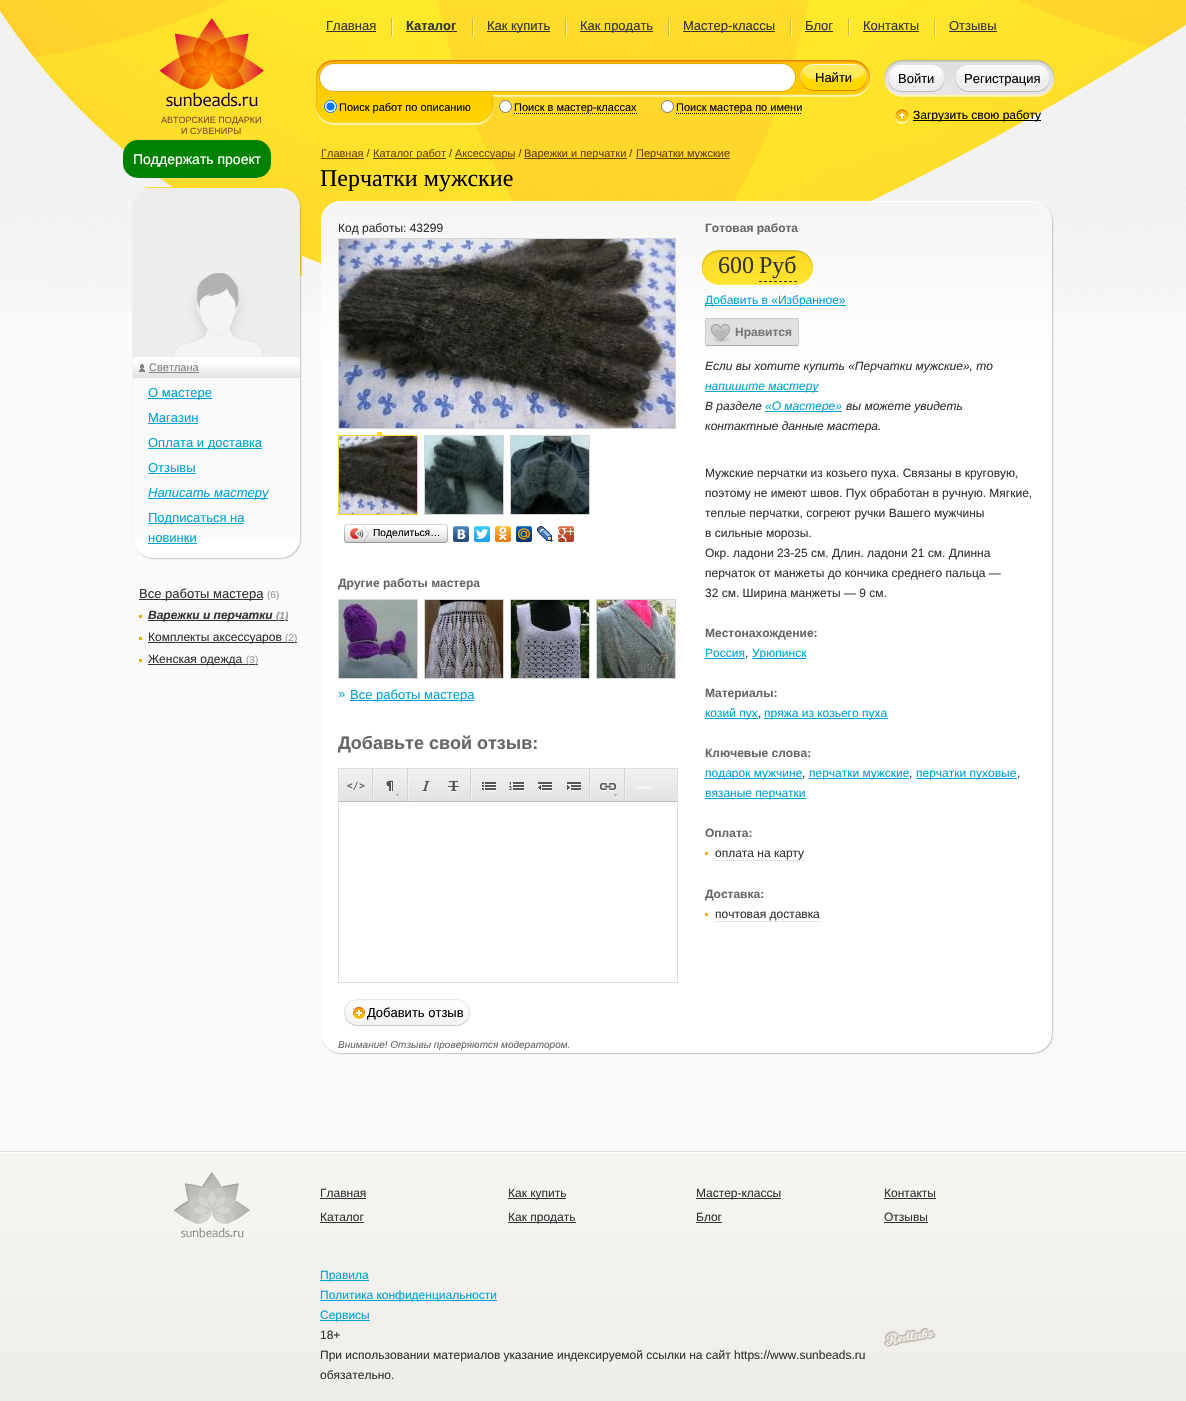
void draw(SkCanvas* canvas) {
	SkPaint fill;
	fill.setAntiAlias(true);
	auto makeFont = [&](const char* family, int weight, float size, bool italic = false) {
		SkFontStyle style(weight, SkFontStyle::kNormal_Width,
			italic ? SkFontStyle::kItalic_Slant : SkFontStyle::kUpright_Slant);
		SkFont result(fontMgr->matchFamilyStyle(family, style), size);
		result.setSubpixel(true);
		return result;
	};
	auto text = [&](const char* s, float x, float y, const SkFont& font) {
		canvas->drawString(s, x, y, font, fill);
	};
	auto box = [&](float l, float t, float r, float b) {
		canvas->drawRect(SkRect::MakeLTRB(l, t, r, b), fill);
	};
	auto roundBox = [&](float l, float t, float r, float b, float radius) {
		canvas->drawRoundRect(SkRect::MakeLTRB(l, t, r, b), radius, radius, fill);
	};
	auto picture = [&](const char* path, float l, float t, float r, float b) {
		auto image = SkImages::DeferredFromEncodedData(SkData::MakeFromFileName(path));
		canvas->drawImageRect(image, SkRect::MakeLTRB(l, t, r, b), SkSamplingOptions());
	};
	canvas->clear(0xFFFAFAFA);
	picture("image0.png", 0, 0, 1186, 312);
	fill.setColor(0xFF333333);
	box(326, 31, 376, 32);
	picture("image1.png", 391, 18, 393, 37);
	box(406, 31, 457, 32);
	picture("image2.png", 472, 18, 474, 37);
	box(487, 31, 550, 32);
	picture("image3.png", 565, 18, 567, 37);
	box(580, 31, 653, 32);
	picture("image4.png", 668, 18, 670, 37);
	box(683, 31, 775, 32);
	picture("image5.png", 790, 18, 792, 37);
	box(805, 31, 833, 32);
	picture("image1.png", 848, 18, 850, 37);
	box(863, 31, 919, 32);
	picture("image6.png", 934, 18, 936, 37);
	box(949, 31, 997, 32);
	picture("image7.png", 333, 60, 853, 97);
	picture("image8.png", 316, 60, 333, 85);
	picture("image15.png", 316, 75, 336, 95);
	picture("image9.png", 333, 63, 782, 92);
	picture("image10.png", 319, 63, 333, 92);
	picture("image11.png", 782, 63, 796, 92);
	picture("image13.png", 853, 60, 870, 97);
	picture("image12.png", 800, 64, 867, 91);
	picture("image14.png", 333, 95, 476, 125);
	picture("image16.png", 316, 95, 333, 125);
	fill.setColor(0xFFFFFFFF);
	canvas->drawCircle(330.5f, 106.5f, 6, fill);
	fill.setStyle(SkPaint::kStroke_Style);
	fill.setStrokeWidth(1);
	fill.setColor(0xFF0075FF);
	canvas->drawCircle(330.5f, 106.5f, 6, fill);
	fill.setStyle(SkPaint::kFill_Style);
	canvas->drawCircle(330.5f, 106.5f, 4, fill);
	picture("image17.png", 476, 95, 493, 125);
	fill.setColor(0xFFFFFFFF);
	canvas->drawCircle(505.5f, 106.5f, 6, fill);
	fill.setStyle(SkPaint::kStroke_Style);
	fill.setColor(0xFF767676);
	canvas->drawCircle(505.5f, 106.5f, 6, fill);
	fill.setColor(0xFF000000);
	fill.setPathEffect(SkDashPathEffect::Make({{1, 1}}, 0));
	canvas->drawPath(SkPathBuilder().moveTo(514, 113.5f).lineTo(637, 113.5f).detach(), fill);
	fill.setPathEffect(nullptr);
	fill.setStyle(SkPaint::kFill_Style);
	fill.setColor(0xFFFFFFFF);
	canvas->drawCircle(667.5f, 106.5f, 6, fill);
	fill.setStyle(SkPaint::kStroke_Style);
	fill.setColor(0xFF767676);
	canvas->drawCircle(667.5f, 106.5f, 6, fill);
	fill.setColor(0xFF000000);
	fill.setPathEffect(SkDashPathEffect::Make({{1, 1}}, 0));
	canvas->drawPath(SkPathBuilder().moveTo(676, 113.5f).lineTo(802, 113.5f).detach(), fill);
	fill.setPathEffect(nullptr);
	picture("image18.png", 901, 60, 1037, 97);
	picture("image19.png", 884, 60, 901, 97);
	picture("image20.png", 888, 65, 945, 92);
	picture("image22.png", 1037, 60, 1054, 97);
	picture("image21.png", 955, 65, 1050, 92);
	picture("image23.png", 895, 109, 909, 124);
	fill.setStyle(SkPaint::kFill_Style);
	box(913, 120, 1041, 121);
	fill.setColor(0xFF008000);
	roundBox(123, 140, 271, 178, 15);
	picture("image26.png", 133, 188, 300, 357);
	picture("image24.png", 132, 187, 282, 540);
	picture("image25.png", 282, 187, 302, 540);
	picture("image27.png", 133, 357, 300, 378);
	picture("image28.png", 139, 364, 145, 372);
	fill.setColor(0xFF838383);
	box(149, 372, 199, 373);
	fill.setColor(0xFF00A3D2);
	box(148, 398, 212, 399);
	box(148, 423, 198, 424);
	box(148, 448, 262, 449);
	box(148, 473, 196, 474);
	box(148, 498, 268, 499);
	box(148, 523, 244, 524);
	picture("image29.png", 133, 540, 282, 560);
	box(148, 543, 197, 544);
	picture("image30.png", 282, 540, 302, 560);
	fill.setColor(0xFF333333);
	box(139, 599, 263, 600);
	fill.setColor(0xFFF6A800);
	box(139, 615, 142, 618);
	fill.setColor(0xFF333333);
	box(148, 620, 288, 621);
	fill.setColor(0xFFF6A800);
	box(139, 637, 142, 640);
	fill.setColor(0xFF333333);
	box(148, 642, 297, 643);
	fill.setColor(0xFFF6A800);
	box(139, 659, 142, 662);
	fill.setColor(0xFF333333);
	box(148, 664, 258, 665);
	fill.setColor(0xFF694000);
	box(321, 158, 364, 159);
	box(373, 158, 446, 159);
	box(455, 158, 515, 159);
	box(524, 158, 627, 159);
	box(636, 158, 730, 159);
	picture("image31.png", 321, 201, 1034, 1035);
	picture("image32.png", 1034, 201, 1054, 1035);
	fill.setStyle(SkPaint::kStroke_Style);
	fill.setColor(0xFFD5D5D5);
	canvas->drawRect(SkRect::MakeLTRB(338.5f, 238.5f, 675.5f, 428.5f), fill);
	picture("image33.png", 339, 239, 675, 428);
	fill.setColor(0xFFFFD22A);
	canvas->drawRect(SkRect::MakeLTRB(338.5f, 435.5f, 417.5f, 514.5f), fill);
	fill.setStyle(SkPaint::kFill_Style);
	box(377, 432, 382, 435);
	picture("image34.png", 339, 436, 417, 514);
	fill.setStyle(SkPaint::kStroke_Style);
	fill.setColor(0xFFD5D5D5);
	canvas->drawRect(SkRect::MakeLTRB(424.5f, 435.5f, 503.5f, 514.5f), fill);
	picture("image35.png", 425, 436, 503, 514);
	canvas->drawRect(SkRect::MakeLTRB(510.5f, 435.5f, 589.5f, 514.5f), fill);
	picture("image36.png", 511, 436, 589, 514);
	picture("image37.png", 347, 524, 445, 543);
	picture("image38.png", 344, 524, 347, 543);
	picture("image39.png", 350, 525, 370, 542);
	picture("image40.png", 445, 524, 448, 543);
	picture("image41.png", 453, 526, 469, 542);
	picture("image42.png", 474, 526, 490, 542);
	picture("image43.png", 495, 526, 511, 542);
	picture("image44.png", 516, 526, 532, 542);
	picture("image45.png", 537, 526, 553, 542);
	picture("image46.png", 558, 526, 574, 542);
	canvas->drawRect(SkRect::MakeLTRB(338.5f, 599.5f, 417.5f, 678.5f), fill);
	picture("image47.png", 339, 600, 417, 678);
	canvas->drawRect(SkRect::MakeLTRB(424.5f, 599.5f, 503.5f, 678.5f), fill);
	picture("image48.png", 425, 600, 503, 678);
	canvas->drawRect(SkRect::MakeLTRB(510.5f, 599.5f, 589.5f, 678.5f), fill);
	picture("image49.png", 511, 600, 589, 678);
	canvas->drawRect(SkRect::MakeLTRB(596.5f, 599.5f, 675.5f, 678.5f), fill);
	picture("image50.png", 597, 600, 675, 678);
	fill.setStyle(SkPaint::kFill_Style);
	fill.setColor(0xFF00A3D2);
	box(350, 700, 474, 701);
	fill.setStyle(SkPaint::kStroke_Style);
	fill.setColor(0xFFDDDDDD);
	canvas->drawRect(SkRect::MakeLTRB(338.5f, 768.5f, 677.5f, 982.5f), fill);
	fill.setStyle(SkPaint::kFill_Style);
	{
		const SkColor colors[] = {0xFFF1F1F1, 0xFFE2E2E2};
		const float stops[] = {0, 1};
		const SkPoint ends[] = {{508, 769}, {508, 801}};
		fill.setShader(SkGradientShader::MakeLinear(ends, colors, stops, 2, SkTileMode::kClamp));
		fill.setAlpha(255);
	}
	box(339, 769, 677, 801);
	fill.setShader(nullptr);
	fill.setColor(0xFFBBBBBB);
	box(339, 801, 677, 802);
	picture("image51.png", 347, 781, 365, 791);
	fill.setColor(0xFFF1F1F1);
	box(373, 769, 374, 801);
	fill.setColor(0xFFD3D3D3);
	box(372, 769, 373, 801);
	picture("image52.png", 386, 780, 399, 796);
	fill.setColor(0xFFF1F1F1);
	box(408, 769, 409, 801);
	fill.setColor(0xFFD3D3D3);
	box(407, 769, 408, 801);
	picture("image53.png", 422, 781, 430, 793);
	picture("image54.png", 448, 781, 459, 793);
	fill.setColor(0xFFF1F1F1);
	box(471, 769, 472, 801);
	fill.setColor(0xFFD3D3D3);
	box(470, 769, 471, 801);
	picture("image55.png", 481, 782, 497, 792);
	picture("image56.png", 509, 782, 525, 792);
	picture("image57.png", 538, 782, 553, 792);
	picture("image58.png", 566, 782, 582, 792);
	fill.setColor(0xFFF1F1F1);
	box(590, 769, 591, 801);
	fill.setColor(0xFFD3D3D3);
	box(589, 769, 590, 801);
	picture("image59.png", 599, 783, 617, 796);
	fill.setColor(0xFFF1F1F1);
	box(625, 769, 626, 801);
	fill.setColor(0xFFD3D3D3);
	box(624, 769, 625, 801);
	fill.setColor(0xFFF4F4F4);
	box(635, 786, 651, 789);
	picture("image60.png", 344, 999, 470, 1026);
	picture("image61.png", 717, 250, 797, 287);
	picture("image62.png", 701, 250, 717, 287);
	fill.setStyle(SkPaint::kStroke_Style);
	fill.setColor(0xFF333333);
	fill.setPathEffect(SkDashPathEffect::Make({{3, 2}}, 0));
	canvas->drawPath(SkPathBuilder().moveTo(759, 281.5f).lineTo(797, 281.5f).detach(), fill);
	fill.setPathEffect(nullptr);
	picture("image63.png", 797, 250, 813, 287);
	fill.setStyle(SkPaint::kFill_Style);
	fill.setColor(0xFF00A3D2);
	box(705, 305, 846, 306);
	fill.setColor(0xFFE0E0E0);
	roundBox(705, 318, 799, 346, 2);
	fill.setStyle(SkPaint::kStroke_Style);
	fill.setColor(0xFFAAAAAA);
	canvas->drawPath(SkPathBuilder().moveTo(798, 345).lineTo(797, 345.5f).lineTo(707, 345.5f).lineTo(706, 345).detach(), fill);
	fill.setColor(0xFFCCCCCC);
	canvas->drawPath(SkPathBuilder().moveTo(706, 345).cubicTo(704.5f, 343.5f, 705.5f, 338, 705.5f, 336).lineTo(705.5f, 324).cubicTo(705.5f, 323.5f, 704.5f, 318.5f, 707, 318.5f).lineTo(797, 318.5f).cubicTo(799.5f, 318.5f, 798.5f, 323.5f, 798.5f, 324).lineTo(798.5f, 336).cubicTo(798.5f, 338, 799.5f, 343.5f, 798, 345).detach(), fill);
	picture("image64.png", 711, 324, 730, 343);
	fill.setStyle(SkPaint::kFill_Style);
	fill.setColor(0xFF00A3D2);
	box(705, 391, 818, 392);
	box(765, 411, 842, 412);
	box(705, 658, 745, 659);
	box(752, 658, 806, 659);
	box(705, 718, 758, 719);
	box(764, 718, 888, 719);
	box(705, 778, 802, 779);
	box(809, 778, 909, 779);
	box(916, 778, 1017, 779);
	box(705, 798, 806, 799);
	fill.setColor(0xFFF6A800);
	box(705, 852, 708, 855);
	fill.setStyle(SkPaint::kStroke_Style);
	fill.setColor(0xFFCCCCCC);
	fill.setPathEffect(SkDashPathEffect::Make({{1, 1}}, 0));
	canvas->drawPath(SkPathBuilder().moveTo(715, 860.5f).lineTo(804, 860.5f).detach(), fill);
	fill.setPathEffect(nullptr);
	fill.setStyle(SkPaint::kFill_Style);
	fill.setColor(0xFFF6A800);
	box(705, 913, 708, 916);
	fill.setStyle(SkPaint::kStroke_Style);
	fill.setColor(0xFFCCCCCC);
	fill.setPathEffect(SkDashPathEffect::Make({{1, 1}}, 0));
	canvas->drawPath(SkPathBuilder().moveTo(715, 921.5f).lineTo(820, 921.5f).detach(), fill);
	fill.setPathEffect(nullptr);
	picture("image65.png", 321, 1035, 1034, 1055);
	picture("image30.png", 1034, 1035, 1054, 1055);
	picture("image66.png", 0, 1151, 1186, 1401);
	picture("image67.png", 174, 1172, 251, 1238);
	fill.setStyle(SkPaint::kFill_Style);
	fill.setColor(0xFF333333);
	box(320, 1198, 366, 1199);
	box(320, 1222, 364, 1223);
	box(508, 1198, 566, 1199);
	box(508, 1222, 576, 1223);
	box(696, 1198, 781, 1199);
	box(696, 1222, 722, 1223);
	box(884, 1198, 936, 1199);
	box(884, 1222, 928, 1223);
	fill.setColor(0xFF00A3D2);
	box(320, 1280, 369, 1281);
	box(320, 1300, 497, 1301);
	box(320, 1320, 370, 1321);
	picture("image68.png", 884, 1327, 936, 1347);
	auto font1 = makeFont("Liberation Sans", 400, 13);
	fill.setColor(0xFF333333);
	text("Главная", 326, 30, font1);
	auto font2 = makeFont("Liberation Sans", 700, 13);
	text("Каталог", 406, 30, font2);
	text("Как купить", 487, 30, font1);
	text("Как продать", 580, 30, font1);
	text("Мастер-классы", 683, 30, font1);
	text("Блог", 805, 30, font1);
	text("Контакты", 863, 30, font1);
	text("Отзывы", 949, 30, font1);
	fill.setColor(0xFF000000);
	text("Найти", 815, 82, font1);
	auto font3 = makeFont("Liberation Sans", 400, 11);
	text("Поиск работ по описанию", 339, 111, font3);
	text("Поиск в мастер-классах", 514, 111, font3);
	text("Поиск мастера по имени", 676, 111, font3);
	text("Войти", 898, 83, font1);
	text("Регистрация", 964, 83, font1);
	auto font4 = makeFont("Liberation Sans", 400, 9);
	fill.setColor(0xFF774C30);
	text("АВТОРСКИЕ ПОДАРКИ", 161, 123, font4);
	text("И СУВЕНИРЫ", 181, 134, font4);
	auto font5 = makeFont("Liberation Sans", 400, 12);
	fill.setColor(0xFF000000);
	text("Загрузить свою работу", 913, 119, font5);
	auto font6 = makeFont("Liberation Sans", 400, 14);
	fill.setColor(0xFFFFFFFF);
	text("Поддержать проект", 133, 164, font6);
	fill.setColor(0xFF838383);
	text("Светлана", 149, 371, font3);
	fill.setColor(0xFF00A3D2);
	text("О мастере", 148, 397, font1);
	text("Магазин", 148, 422, font1);
	text("Оплата и доставка", 148, 447, font1);
	text("Отзывы", 148, 472, font1);
	auto font7 = makeFont("Liberation Sans", 400, 13, true);
	text("Написать мастеру", 148, 497, font7);
	text("Подписаться на", 148, 522, font1);
	text("новинки", 148, 542, font1);
	fill.setColor(0xFF333333);
	text("Все работы мастера", 139, 598, font1);
	auto font8 = makeFont("Liberation Sans", 400, 10);
	fill.setColor(0xFF999999);
	text("(6)", 267, 598, font8);
	auto font9 = makeFont("Liberation Sans", 700, 12, true);
	fill.setColor(0xFF333333);
	text("Варежки и перчатки", 148, 619, font9);
	auto font10 = makeFont("Liberation Sans", 700, 10, true);
	fill.setColor(0xFF999999);
	text("(1)", 276, 619, font10);
	fill.setColor(0xFF333333);
	text("Комплекты аксессуаров", 148, 641, font5);
	fill.setColor(0xFF999999);
	text("(2)", 285, 641, font8);
	fill.setColor(0xFF333333);
	text("Женская одежда", 148, 663, font5);
	fill.setColor(0xFF999999);
	text("(3)", 246, 663, font8);
	fill.setColor(0xFF694000);
	text("Главная /", 321, 157, font3);
	text("Каталог работ /", 373, 157, font3);
	text("Аксессуары /", 455, 157, font3);
	text("Варежки и перчатки /", 524, 157, font3);
	text("Перчатки мужские", 636, 157, font3);
	auto font11 = makeFont("Liberation Serif", 400, 24);
	fill.setColor(0xFF000000);
	text("Перчатки мужские", 320, 186, font11);
	fill.setColor(0xFF333333);
	text("Код работы: 43299", 338, 232, font5);
	auto font12 = makeFont("Liberation Sans", 400, 10.25f);
	fill.setColor(0xFF000000);
	text("Поделиться…", 373, 536, font12);
	auto font13 = makeFont("Liberation Sans", 700, 12);
	fill.setColor(0xFF666666);
	text("Другие работы мастера", 338, 587, font13);
	fill.setColor(0xFF00A3D2);
	text("»", 338, 698, font1);
	text("Все работы мастера", 350, 699, font1);
	auto font14 = makeFont("Liberation Sans", 700, 18);
	fill.setColor(0xFF666666);
	text("Добавьте свой отзыв:", 338, 749, font14);
	fill.setColor(0xFF000000);
	text("Добавить отзыв", 367, 1017, font1);
	auto font15 = makeFont("Liberation Sans", 400, 10, true);
	fill.setColor(0xFF666666);
	text("Внимание! Отзывы проверяются модератором.", 338, 1048, font15);
	text("Готовая работа", 705, 232, font13);
	fill.setColor(0xFF333333);
	text("600", 718, 273, font11);
	text("Руб", 759, 273, font11);
	fill.setColor(0xFF00A3D2);
	text("Добавить в «Избранное»", 705, 304, font5);
	fill.setColor(0xFF777777);
	text("Нравится", 735, 336, font13);
	auto font16 = makeFont("Liberation Sans", 400, 12, true);
	fill.setColor(0xFF333333);
	text("Если вы хотите купить «Перчатки мужские», то", 705, 370, font16);
	fill.setColor(0xFF00A3D2);
	text("напишите мастеру", 705, 390, font16);
	fill.setColor(0xFF333333);
	text("В разделе", 705, 410, font16);
	fill.setColor(0xFF00A3D2);
	text("«О мастере»", 765, 410, font16);
	fill.setColor(0xFF333333);
	text("вы можете увидеть", 846, 410, font16);
	text("контактные данные мастера.", 705, 430, font16);
	text("Мужские перчатки из козьего пуха. Связаны в круговую,", 705, 477, font5);
	text("поэтому не имеют швов. Пух обработан в ручную. Мягкие,", 705, 497, font5);
	text("теплые перчатки, согреют ручки Вашего мужчины", 705, 517, font5);
	text("в сильные морозы.", 705, 537, font5);
	text("Окр. ладони 23-25 см. Длин. ладони 21 см. Длинна", 705, 557, font5);
	text("перчаток от манжеты до кончика среднего пальца —", 705, 577, font5);
	text("32 см. Ширина манжеты — 9 см.", 705, 597, font5);
	fill.setColor(0xFF666666);
	text("Местонахождение:", 705, 637, font13);
	fill.setColor(0xFF00A3D2);
	text("Россия", 705, 657, font5);
	fill.setColor(0xFF333333);
	text(",", 745, 657, font5);
	fill.setColor(0xFF00A3D2);
	text("Урюпинск", 752, 657, font5);
	fill.setColor(0xFF666666);
	text("Материалы:", 705, 697, font13);
	fill.setColor(0xFF00A3D2);
	text("козий пух", 705, 717, font5);
	fill.setColor(0xFF333333);
	text(",", 758, 717, font5);
	fill.setColor(0xFF00A3D2);
	text("пряжа из козьего пуха", 764, 717, font5);
	fill.setColor(0xFF666666);
	text("Ключевые слова:", 705, 757, font13);
	fill.setColor(0xFF00A3D2);
	text("подарок мужчине", 705, 777, font5);
	fill.setColor(0xFF333333);
	text(",", 802, 777, font5);
	fill.setColor(0xFF00A3D2);
	text("перчатки мужские", 809, 777, font5);
	fill.setColor(0xFF333333);
	text(",", 909, 777, font5);
	fill.setColor(0xFF00A3D2);
	text("перчатки пуховые", 916, 777, font5);
	fill.setColor(0xFF333333);
	text(",", 1017, 777, font5);
	fill.setColor(0xFF00A3D2);
	text("вязаные перчатки", 705, 797, font5);
	fill.setColor(0xFF666666);
	text("Оплата:", 705, 837, font13);
	fill.setColor(0xFF333333);
	text("оплата на карту", 715, 857, font5);
	fill.setColor(0xFF666666);
	text("Доставка:", 705, 898, font13);
	fill.setColor(0xFF333333);
	text("почтовая доставка", 715, 918, font5);
	text("Главная", 320, 1197, font5);
	text("Каталог", 320, 1221, font5);
	text("Как купить", 508, 1197, font5);
	text("Как продать", 508, 1221, font5);
	text("Мастер-классы", 696, 1197, font5);
	text("Блог", 696, 1221, font5);
	text("Контакты", 884, 1197, font5);
	text("Отзывы", 884, 1221, font5);
	fill.setColor(0xFF00A3D2);
	text("Правила", 320, 1279, font5);
	text("Политика конфиденциальности", 320, 1299, font5);
	text("Сервисы", 320, 1319, font5);
	fill.setColor(0xFF333333);
	text("18+", 320, 1339, font5);
	text("При использовании материалов указание индексируемой ссылки на сайт https://www.sunbeads.ru", 320, 1359, font5);
	text("обязательно.", 320, 1379, font5);
}
